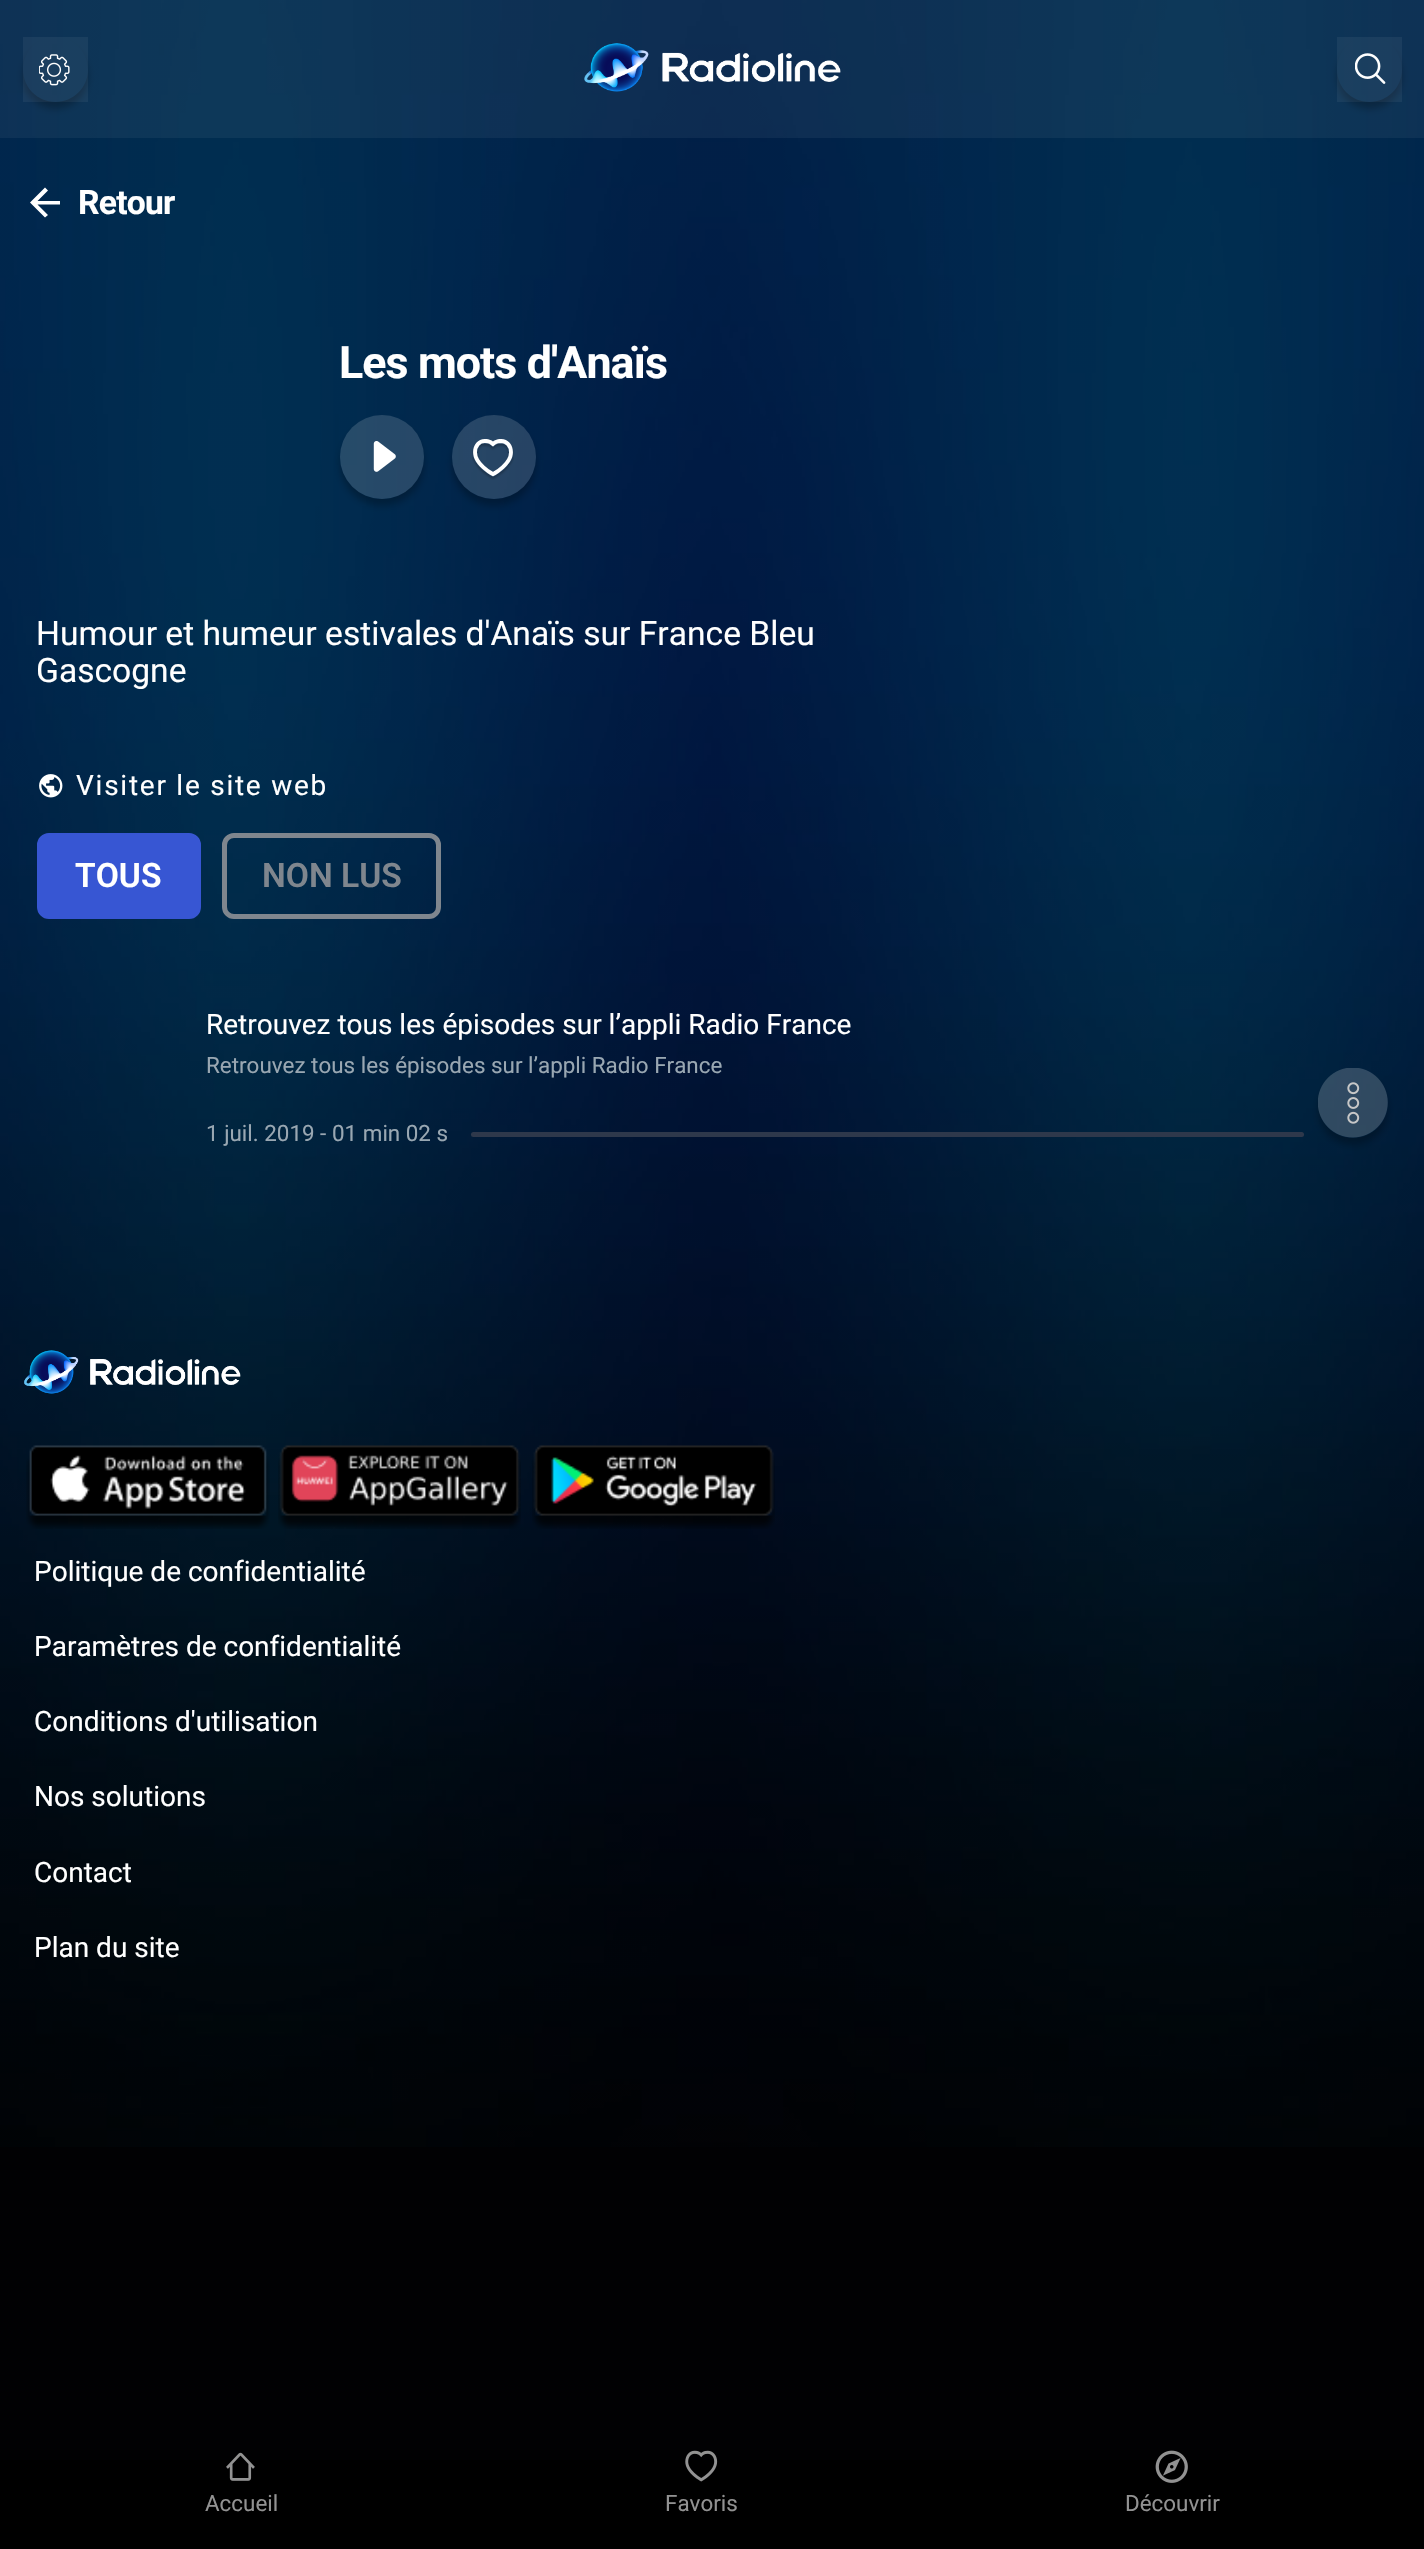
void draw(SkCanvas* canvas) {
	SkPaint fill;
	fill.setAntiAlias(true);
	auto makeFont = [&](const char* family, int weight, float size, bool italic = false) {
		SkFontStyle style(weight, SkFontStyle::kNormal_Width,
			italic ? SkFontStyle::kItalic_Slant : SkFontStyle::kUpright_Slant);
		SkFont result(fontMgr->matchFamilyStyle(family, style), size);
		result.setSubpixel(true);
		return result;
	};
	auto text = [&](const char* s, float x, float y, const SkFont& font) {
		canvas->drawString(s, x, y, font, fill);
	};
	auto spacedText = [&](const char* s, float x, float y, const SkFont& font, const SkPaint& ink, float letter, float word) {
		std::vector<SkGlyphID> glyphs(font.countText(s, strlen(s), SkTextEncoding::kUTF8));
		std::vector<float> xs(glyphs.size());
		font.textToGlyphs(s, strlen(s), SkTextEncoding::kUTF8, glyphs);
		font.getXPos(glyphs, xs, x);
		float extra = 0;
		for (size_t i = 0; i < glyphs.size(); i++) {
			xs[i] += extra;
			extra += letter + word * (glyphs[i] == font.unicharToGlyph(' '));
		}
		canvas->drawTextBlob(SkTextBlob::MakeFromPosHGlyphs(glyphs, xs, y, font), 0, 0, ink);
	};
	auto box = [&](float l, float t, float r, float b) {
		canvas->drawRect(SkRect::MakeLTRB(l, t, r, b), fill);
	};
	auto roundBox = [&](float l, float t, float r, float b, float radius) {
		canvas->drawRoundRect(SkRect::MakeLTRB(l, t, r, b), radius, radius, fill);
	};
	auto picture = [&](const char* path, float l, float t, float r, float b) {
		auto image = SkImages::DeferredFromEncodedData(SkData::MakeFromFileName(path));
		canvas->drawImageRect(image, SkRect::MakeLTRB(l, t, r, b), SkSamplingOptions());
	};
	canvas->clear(0xFF010103);
	picture("image0.png", 0, 0, 1424, 2147);
	fill.setColor(0x0DFFFFFF);
	box(0, 0, 1424, 138);
	canvas->save();
	canvas->clipPath(SkPathBuilder(SkPathFillType::kEvenOdd).moveTo(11, 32).lineTo(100, 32).lineTo(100, 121).lineTo(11, 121).close().moveTo(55.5f, 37).cubicTo(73.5f, 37, 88, 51.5f, 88, 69.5f).cubicTo(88, 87.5f, 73.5f, 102, 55.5f, 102).cubicTo(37.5f, 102, 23, 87.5f, 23, 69.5f).cubicTo(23, 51.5f, 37.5f, 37, 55.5f, 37).close().detach(), true);
	fill.setColor(0x40000000);
	fill.setMaskFilter(SkMaskFilter::MakeBlur(kNormal_SkBlurStyle, 3.5f));
	canvas->drawRoundRect(SkRect::MakeLTRB(23, 44, 88, 109), 32.5f, 32.5f, fill);
	fill.setMaskFilter(nullptr);
	canvas->restore();
	fill.setColor(0x0DFFFFFF);
	box(23, 37, 88, 102);
	picture("image1.png", 39, 54, 70, 86);
	picture("image2.png", 584, 43, 841, 92);
	canvas->save();
	canvas->clipPath(SkPathBuilder(SkPathFillType::kEvenOdd).moveTo(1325, 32).lineTo(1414, 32).lineTo(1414, 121).lineTo(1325, 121).close().moveTo(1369.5f, 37).cubicTo(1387.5f, 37, 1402, 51.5f, 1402, 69.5f).cubicTo(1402, 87.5f, 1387.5f, 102, 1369.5f, 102).cubicTo(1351.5f, 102, 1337, 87.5f, 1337, 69.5f).cubicTo(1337, 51.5f, 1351.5f, 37, 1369.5f, 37).close().detach(), true);
	fill.setColor(0x40000000);
	fill.setMaskFilter(SkMaskFilter::MakeBlur(kNormal_SkBlurStyle, 3.5f));
	canvas->drawRoundRect(SkRect::MakeLTRB(1337, 44, 1402, 109), 32.5f, 32.5f, fill);
	fill.setMaskFilter(nullptr);
	canvas->restore();
	fill.setColor(0x0DFFFFFF);
	box(1337, 37, 1402, 102);
	picture("image3.png", 1355, 53, 1386, 84);
	fill.setColor(0xFFFFFFFF);
	canvas->drawPath(SkPathBuilder().moveTo(60, 201).lineTo(37.5f, 201).lineTo(48, 190.5f).lineTo(45, 187.5f).lineTo(30, 202.5f).lineTo(45, 217.5f).lineTo(48, 215).lineTo(37.5f, 204.5f).lineTo(60, 204.5f).close().detach(), fill);
	canvas->save();
	canvas->clipPath(SkPathBuilder(SkPathFillType::kEvenOdd).moveTo(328, 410).lineTo(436, 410).lineTo(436, 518).lineTo(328, 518).close().moveTo(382, 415).cubicTo(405, 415, 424, 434, 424, 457).cubicTo(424, 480, 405, 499, 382, 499).cubicTo(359, 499, 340, 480, 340, 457).cubicTo(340, 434, 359, 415, 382, 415).close().detach(), true);
	fill.setColor(0x40000000);
	fill.setMaskFilter(SkMaskFilter::MakeBlur(kNormal_SkBlurStyle, 3.5f));
	canvas->drawRoundRect(SkRect::MakeLTRB(340, 422, 424, 506), 42, 42, fill);
	fill.setMaskFilter(nullptr);
	canvas->restore();
	fill.setColor(0x26FFFFFF);
	canvas->drawCircle(382, 457, 42, fill);
	picture("image4.png", 373, 441, 396, 472);
	canvas->save();
	canvas->clipPath(SkPathBuilder(SkPathFillType::kEvenOdd).moveTo(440, 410).lineTo(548, 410).lineTo(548, 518).lineTo(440, 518).close().moveTo(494, 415).cubicTo(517, 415, 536, 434, 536, 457).cubicTo(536, 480, 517, 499, 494, 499).cubicTo(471, 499, 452, 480, 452, 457).cubicTo(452, 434, 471, 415, 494, 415).close().detach(), true);
	fill.setColor(0x40000000);
	fill.setMaskFilter(SkMaskFilter::MakeBlur(kNormal_SkBlurStyle, 3.5f));
	canvas->drawRoundRect(SkRect::MakeLTRB(452, 422, 536, 506), 42, 42, fill);
	fill.setMaskFilter(nullptr);
	canvas->restore();
	fill.setColor(0x26FFFFFF);
	canvas->drawCircle(494, 457, 42, fill);
	picture("image5.png", 472, 439, 514, 480);
	picture("image6.png", 39, 774, 63, 798);
	fill.setColor(0xFF3756D3);
	canvas->drawRoundRect(SkRect::MakeLTRB(39.5f, 835.5f, 198.5f, 916.5f), 9.5f, 9.5f, fill);
	fill.setStyle(SkPaint::kStroke_Style);
	fill.setStrokeWidth(5);
	canvas->drawRoundRect(SkRect::MakeLTRB(39.5f, 835.5f, 198.5f, 916.5f), 9.5f, 9.5f, fill);
	fill.setColor(0xFF7F868E);
	canvas->drawRoundRect(SkRect::MakeLTRB(224.5f, 835.5f, 438.5f, 916.5f), 9.5f, 9.5f, fill);
	fill.setStyle(SkPaint::kFill_Style);
	fill.setColor(0xFF2E384B);
	roundBox(471, 1132, 1304, 1137, 2.5f);
	canvas->save();
	canvas->clipPath(SkPathBuilder(SkPathFillType::kEvenOdd).moveTo(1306, 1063).lineTo(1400, 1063).lineTo(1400, 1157).lineTo(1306, 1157).close().moveTo(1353, 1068).cubicTo(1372.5f, 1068, 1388, 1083.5f, 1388, 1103).cubicTo(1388, 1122.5f, 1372.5f, 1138, 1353, 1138).cubicTo(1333.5f, 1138, 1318, 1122.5f, 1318, 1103).cubicTo(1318, 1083.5f, 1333.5f, 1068, 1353, 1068).close().detach(), true);
	fill.setColor(0x40000000);
	fill.setMaskFilter(SkMaskFilter::MakeBlur(kNormal_SkBlurStyle, 3.5f));
	canvas->drawRoundRect(SkRect::MakeLTRB(1318, 1075, 1388, 1145), 35, 35, fill);
	fill.setMaskFilter(nullptr);
	canvas->restore();
	picture("image7.png", 1318, 1068, 1388, 1138);
	picture("image8.png", 24, 1350, 241, 1394);
	picture("image9.png", 26, 1445, 270, 1529);
	picture("image10.png", 278, 1445, 521, 1529);
	picture("image11.png", 532, 1445, 775, 1529);
	{
		const SkColor colors[] = {0xFF010103, 0xFF010103, 0xFF010102, 0xFF010102, 0xFF000001, 0xFF000001, 0xFF000000, 0xFF000000};
		const float stops[] = {0, 0.09f, 0.12f, 0.23f, 0.28f, 0.49f, 0.59f, 1};
		const SkPoint ends[] = {{712, 2354}, {712, 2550}};
		fill.setShader(SkGradientShader::MakeLinear(ends, colors, stops, 8, SkTileMode::kClamp));
		fill.setAlpha(255);
	}
	box(0, 2460, 1424, 2549);
	picture("image12.png", 226, 2452, 255, 2481);
	picture("image13.png", 685, 2450, 718, 2482);
	picture("image14.png", 1155, 2450, 1188, 2483);
	auto font1 = makeFont("Roboto", 700, 33.6f);
	fill.setShader(nullptr);
	fill.setColor(0xFFFFFFFF);
	spacedText("Retour", 78, 214, font1, fill, -0.75f, 0);
	auto font2 = makeFont("Roboto", 700, 44.75f);
	spacedText("Les mots d'Anaïs", 339, 378, font2, fill, -0.9f, 0);
	auto font3 = makeFont("Roboto", 400, 33.6f);
	text("Humour et humeur estivales d'Anaïs sur France Bleu", 36, 645, font3);
	text("Gascogne", 36, 682, font3);
	auto font4 = makeFont("Roboto", 400, 28);
	spacedText("Visiter le site web", 76, 795, font4, fill, 1.75f, 0);
	auto font5 = makeFont("Roboto", 600, 33.6f);
	text("TOUS", 75, 887, font5);
	fill.setColor(0xFF7F868E);
	text("NON LUS", 262, 887, font5);
	fill.setColor(0xFFFFFFFF);
	text("Retrouvez tous les épisodes sur l’appli Radio France", 206, 1034, font4);
	auto font6 = makeFont("Roboto", 400, 22.4f);
	fill.setColor(0xFF99A7B2);
	text("Retrouvez tous les épisodes sur l’appli Radio France", 206, 1073, font6);
	text("1 juil. 2019", 206, 1141, font6);
	text("-", 320, 1141, font6);
	text("01 min 02 s", 332, 1141, font6);
	fill.setColor(0xFFFFFFFF);
	text("Politique de confidentialité", 34, 1581, font4);
	text("Paramètres de confidentialité", 34, 1656, font4);
	text("Conditions d'utilisation", 34, 1731, font4);
	text("Nos solutions", 34, 1806, font4);
	text("Contact", 34, 1882, font4);
	text("Plan du site", 34, 1957, font4);
	fill.setColor(0xFF929292);
	text("Accueil", 205, 2511, font6);
	text("Favoris", 665, 2511, font6);
	text("Découvrir", 1125, 2511, font6);
}
